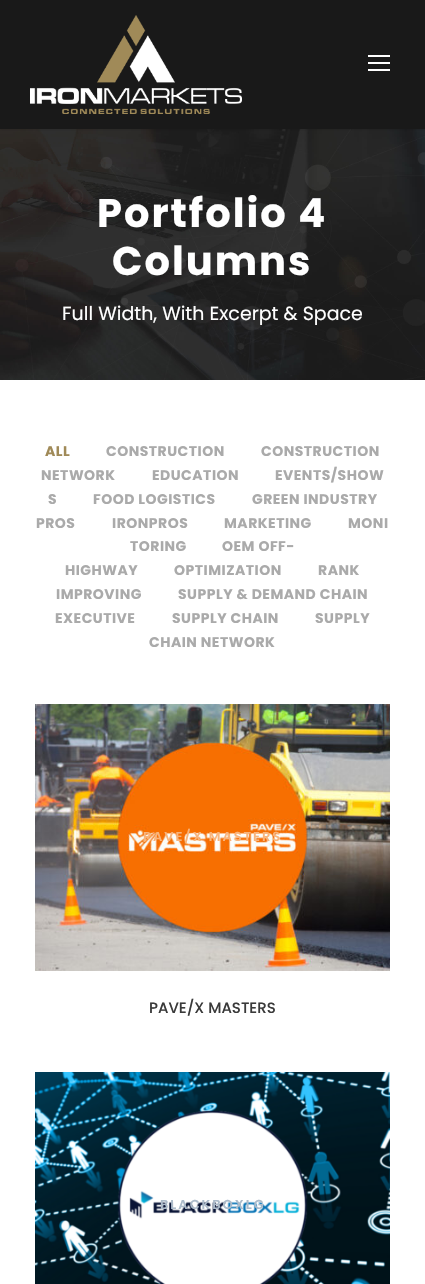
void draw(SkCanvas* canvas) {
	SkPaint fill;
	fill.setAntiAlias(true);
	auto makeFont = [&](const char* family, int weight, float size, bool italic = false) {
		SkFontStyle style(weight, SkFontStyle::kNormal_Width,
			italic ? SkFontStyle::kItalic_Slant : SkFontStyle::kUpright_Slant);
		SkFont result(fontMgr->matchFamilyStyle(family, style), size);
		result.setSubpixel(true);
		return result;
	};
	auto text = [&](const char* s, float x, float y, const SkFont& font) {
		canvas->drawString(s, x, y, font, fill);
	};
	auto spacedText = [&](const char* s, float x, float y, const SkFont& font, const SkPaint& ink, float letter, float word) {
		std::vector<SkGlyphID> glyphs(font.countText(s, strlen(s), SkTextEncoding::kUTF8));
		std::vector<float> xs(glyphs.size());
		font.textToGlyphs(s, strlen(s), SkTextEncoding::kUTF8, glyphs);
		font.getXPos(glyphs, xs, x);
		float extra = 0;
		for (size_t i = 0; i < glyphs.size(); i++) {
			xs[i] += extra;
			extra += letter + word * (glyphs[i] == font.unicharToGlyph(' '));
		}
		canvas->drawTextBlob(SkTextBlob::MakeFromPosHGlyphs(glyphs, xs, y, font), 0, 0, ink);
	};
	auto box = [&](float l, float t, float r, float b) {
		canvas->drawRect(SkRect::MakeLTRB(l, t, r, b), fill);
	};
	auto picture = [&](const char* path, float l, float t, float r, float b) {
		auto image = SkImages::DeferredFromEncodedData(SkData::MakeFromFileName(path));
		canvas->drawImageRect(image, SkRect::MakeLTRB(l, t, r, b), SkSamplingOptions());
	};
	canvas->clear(0xFFFFFFFF);
	picture("image1.png", 0, 129, 425, 380);
	fill.setColor(0x1A000000);
	fill.setMaskFilter(SkMaskFilter::MakeBlur(kNormal_SkBlurStyle, 1));
	canvas->drawRect(SkRect::MakeLTRB(0, 1, 425, 130), fill);
	fill.setMaskFilter(nullptr);
	fill.setColor(0xFF191919);
	box(0, 0, 425, 129);
	picture("image0.png", 30, 15, 242, 114);
	fill.setColor(0xFFFFFFFF);
	box(368, 55, 390, 57);
	box(368, 62, 390, 64);
	box(368, 69, 390, 71);
	picture("image2.png", 35, 704, 390, 971);
	picture("image3.png", 35, 1072, 390, 1284);
	auto font1 = makeFont("Poppins", 700, 40);
	spacedText("Portfolio 4", 97, 227, font1, fill, 2, 0);
	spacedText("Columns", 112, 275, font1, fill, 2, 0);
	auto font2 = makeFont("Poppins", 400, 19);
	text("Full Width, With Excerpt & Space", 62, 320, font2);
	auto font3 = makeFont("Poppins", 700, 14);
	fill.setColor(0xFFA08A58);
	spacedText("ALL", 45, 456, font3, fill, 0.5f, 0);
	fill.setColor(0xFFAAAAAA);
	spacedText("CONSTRUCTION", 106, 456, font3, fill, 0.5f, 0);
	spacedText("CONSTRUCTION", 261, 456, font3, fill, 0.5f, 0);
	spacedText("NETWORK", 41, 480, font3, fill, 0.5f, 0);
	spacedText("EDUCATION", 152, 480, font3, fill, 0.5f, 0);
	spacedText("EVENTS/SHOW", 275, 480, font3, fill, 0.5f, 0);
	spacedText("S", 48, 504, font3, fill, 0.5f, 0);
	spacedText("FOOD LOGISTICS", 93, 504, font3, fill, 0.5f, 0);
	spacedText("GREEN INDUSTRY", 252, 504, font3, fill, 0.5f, 0);
	spacedText("PROS", 36, 528, font3, fill, 0.5f, 0);
	spacedText("IRONPROS", 112, 528, font3, fill, 0.5f, 0);
	spacedText("MARKETING", 224, 528, font3, fill, 0.5f, 0);
	spacedText("MONI", 348, 528, font3, fill, 0.5f, 0);
	spacedText("TORING", 130, 551, font3, fill, 0.5f, 0);
	spacedText("OEM OFF-", 222, 551, font3, fill, 0.5f, 0);
	spacedText("HIGHWAY", 65, 575, font3, fill, 0.5f, 0);
	spacedText("OPTIMIZATION", 174, 575, font3, fill, 0.5f, 0);
	spacedText("RANK", 318, 575, font3, fill, 0.5f, 0);
	spacedText("IMPROVING", 56, 599, font3, fill, 0.5f, 0);
	spacedText("SUPPLY & DEMAND CHAIN", 178, 599, font3, fill, 0.5f, 0);
	spacedText("EXECUTIVE", 55, 623, font3, fill, 0.5f, 0);
	spacedText("SUPPLY CHAIN", 172, 623, font3, fill, 0.5f, 0);
	spacedText("SUPPLY", 315, 623, font3, fill, 0.5f, 0);
	spacedText("CHAIN NETWORK", 149, 647, font3, fill, 0.5f, 0);
	auto font4 = makeFont("Poppins", 600, 13);
	fill.setColor(0xFFF8B47C);
	spacedText("PAVE/X MASTERS", 143, 841, font4, fill, 2, 0);
	auto font5 = makeFont("Poppins", 500, 15);
	fill.setColor(0xFF3A3A3A);
	text("PAVE/X MASTERS", 149, 1013, font5);
	fill.setColor(0xFFACBBCA);
	spacedText("BLACKBOXLG", 160, 1209, font4, fill, 2, 0);
}
